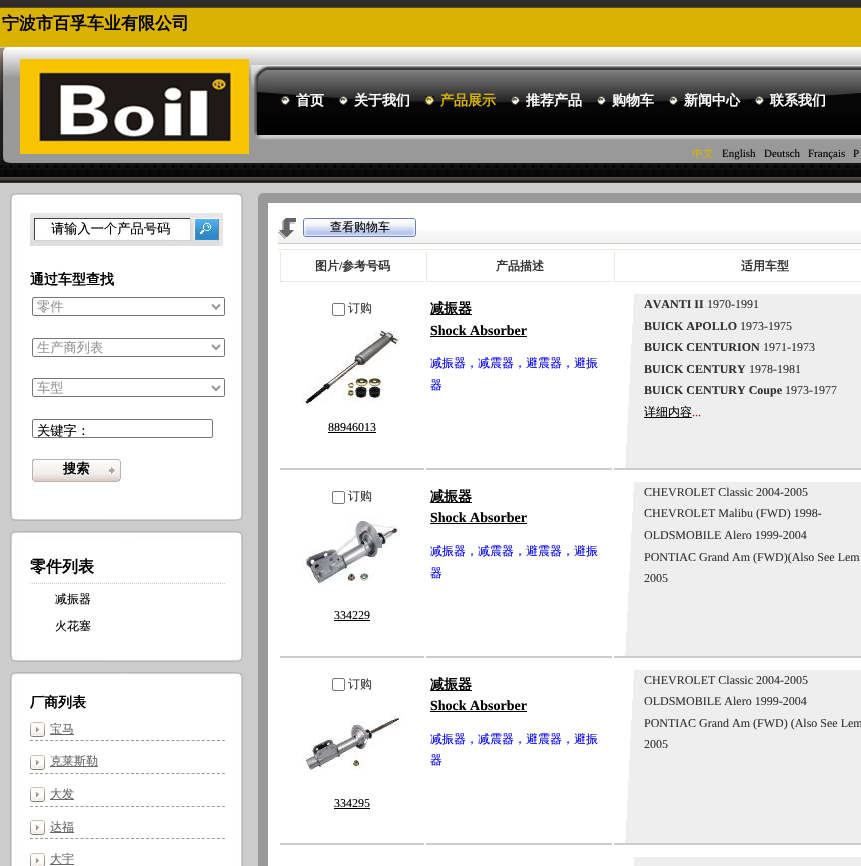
void draw(SkCanvas* canvas) {
	SkPaint fill;
	fill.setAntiAlias(true);
	auto makeFont = [&](const char* family, int weight, float size, bool italic = false) {
		SkFontStyle style(weight, SkFontStyle::kNormal_Width,
			italic ? SkFontStyle::kItalic_Slant : SkFontStyle::kUpright_Slant);
		SkFont result(fontMgr->matchFamilyStyle(family, style), size);
		result.setSubpixel(true);
		return result;
	};
	auto text = [&](const char* s, float x, float y, const SkFont& font) {
		canvas->drawString(s, x, y, font, fill);
	};
	auto box = [&](float l, float t, float r, float b) {
		canvas->drawRect(SkRect::MakeLTRB(l, t, r, b), fill);
	};
	auto picture = [&](const char* path, float l, float t, float r, float b) {
		auto image = SkImages::DeferredFromEncodedData(SkData::MakeFromFileName(path));
		canvas->drawImageRect(image, SkRect::MakeLTRB(l, t, r, b), SkSamplingOptions());
	};
	canvas->clear(0xFF312C29);
	picture("image0.png", 0, 1, 861, 183);
	picture("image1.png", 11, 47, 861, 163);
	picture("image2.png", 0, 47, 11, 163);
	picture("image3.png", 20, 59, 249, 154);
	picture("image4.png", 579, 65, 861, 140);
	picture("image5.png", 251, 65, 579, 140);
	picture("image6.png", 605, 93, 861, 103);
	picture("image7.png", 281, 96, 290, 105);
	picture("image8.png", 339, 96, 348, 105);
	picture("image9.png", 425, 96, 434, 105);
	picture("image10.png", 511, 96, 520, 105);
	picture("image11.png", 597, 96, 606, 105);
	picture("image12.png", 669, 96, 678, 105);
	picture("image13.png", 755, 96, 764, 105);
	fill.setColor(0xFFCCCCCC);
	box(0, 183, 861, 866);
	picture("image14.png", 10, 201, 243, 269);
	picture("image15.png", 10, 193, 243, 201);
	picture("image16.png", 30, 213, 223, 246);
	picture("image17.png", 10, 269, 243, 514);
	picture("image18.png", 10, 514, 243, 521);
	fill.setStyle(SkPaint::kStroke_Style);
	fill.setStrokeWidth(1);
	fill.setColor(0xFF767676);
	canvas->drawRoundRect(SkRect::MakeLTRB(32.5f, 297.5f, 224.5f, 315.5f), 1.5f, 1.5f, fill);
	fill.setStrokeWidth(2);
	fill.setColor(0xFF979696);
	canvas->drawPath(SkPathBuilder().moveTo(212, 304.5f).lineTo(216, 308.5f).lineTo(220, 304.5f).detach(), fill);
	fill.setStrokeWidth(1);
	fill.setColor(0xFF767676);
	canvas->drawRoundRect(SkRect::MakeLTRB(32.5f, 338.5f, 224.5f, 356.5f), 1.5f, 1.5f, fill);
	fill.setStrokeWidth(2);
	fill.setColor(0xFF979696);
	canvas->drawPath(SkPathBuilder().moveTo(212, 345).lineTo(216, 349).lineTo(220, 345).detach(), fill);
	fill.setStrokeWidth(1);
	fill.setColor(0xFF767676);
	canvas->drawRoundRect(SkRect::MakeLTRB(32.5f, 378.5f, 224.5f, 396.5f), 1.5f, 1.5f, fill);
	fill.setStrokeWidth(2);
	fill.setColor(0xFF979696);
	canvas->drawPath(SkPathBuilder().moveTo(212, 386).lineTo(216, 390).lineTo(220, 386).detach(), fill);
	fill.setStrokeWidth(1);
	fill.setColor(0xFF767676);
	canvas->drawRoundRect(SkRect::MakeLTRB(32.5f, 419.5f, 212.5f, 437.5f), 1.5f, 1.5f, fill);
	picture("image19.png", 32, 459, 121, 482);
	picture("image20.png", 10, 539, 243, 655);
	picture("image15.png", 10, 531, 243, 539);
	picture("image18.png", 10, 655, 243, 662);
	fill.setColor(0xFFCCCCCC);
	fill.setPathEffect(SkDashPathEffect::Make({{1, 1}}, 0));
	canvas->drawPath(SkPathBuilder().moveTo(30, 583.5f).lineTo(225, 583.5f).detach(), fill);
	fill.setPathEffect(nullptr);
	picture("image21.png", 10, 680, 243, 866);
	picture("image15.png", 10, 672, 243, 680);
	picture("image22.png", 30, 722, 45, 737);
	fill.setColor(0xFF999999);
	fill.setPathEffect(SkDashPathEffect::Make({{3, 2.05f}}, 0));
	canvas->drawPath(SkPathBuilder().moveTo(30, 740.5f).lineTo(225, 740.5f).detach(), fill);
	fill.setPathEffect(nullptr);
	fill.setStyle(SkPaint::kFill_Style);
	fill.setColor(0xFF666666);
	box(50, 734, 74, 735);
	picture("image22.png", 30, 755, 45, 770);
	fill.setStyle(SkPaint::kStroke_Style);
	fill.setColor(0xFF999999);
	fill.setPathEffect(SkDashPathEffect::Make({{3, 2.05f}}, 0));
	canvas->drawPath(SkPathBuilder().moveTo(30, 773.5f).lineTo(225, 773.5f).detach(), fill);
	fill.setPathEffect(nullptr);
	fill.setStyle(SkPaint::kFill_Style);
	fill.setColor(0xFF666666);
	box(50, 766, 98, 767);
	picture("image22.png", 30, 787, 45, 802);
	fill.setStyle(SkPaint::kStroke_Style);
	fill.setColor(0xFF999999);
	fill.setPathEffect(SkDashPathEffect::Make({{3, 2.05f}}, 0));
	canvas->drawPath(SkPathBuilder().moveTo(30, 806.5f).lineTo(225, 806.5f).detach(), fill);
	fill.setPathEffect(nullptr);
	fill.setStyle(SkPaint::kFill_Style);
	fill.setColor(0xFF666666);
	box(50, 799, 74, 800);
	picture("image22.png", 30, 820, 45, 835);
	fill.setStyle(SkPaint::kStroke_Style);
	fill.setColor(0xFF999999);
	fill.setPathEffect(SkDashPathEffect::Make({{3, 2.05f}}, 0));
	canvas->drawPath(SkPathBuilder().moveTo(30, 838.5f).lineTo(225, 838.5f).detach(), fill);
	fill.setPathEffect(nullptr);
	fill.setStyle(SkPaint::kFill_Style);
	fill.setColor(0xFF666666);
	box(50, 832, 74, 833);
	picture("image23.png", 30, 853, 45, 866);
	box(50, 864, 74, 865);
	fill.setColor(0xFF999999);
	box(258, 193, 861, 866);
	picture("image24.png", 258, 193, 263, 198);
	fill.setColor(0xFFFFFFFF);
	box(268, 203, 861, 866);
	picture("image25.png", 278, 230, 861, 243);
	fill.setColor(0xFFCCCCCC);
	box(278, 243, 861, 244);
	picture("image26.png", 278, 218, 296, 239);
	picture("image27.png", 303, 218, 416, 237);
	fill.setColor(0xFFEAE7DF);
	box(278, 249, 861, 250);
	box(280, 281, 424, 282);
	box(280, 252, 281, 282);
	box(426, 281, 612, 282);
	box(426, 252, 427, 282);
	box(614, 281, 861, 282);
	box(614, 252, 615, 282);
	fill.setColor(0xFFCCCCCC);
	box(280, 468, 424, 470);
	fill.setStyle(SkPaint::kStroke_Style);
	fill.setColor(0xFF767676);
	canvas->drawRoundRect(SkRect::MakeLTRB(332.5f, 303.5f, 344.5f, 315.5f), 1.5f, 1.5f, fill);
	picture("image28.png", 302, 330, 398, 405);
	fill.setStyle(SkPaint::kFill_Style);
	fill.setColor(0xFF000000);
	box(328, 432, 376, 433);
	fill.setColor(0xFFCCCCCC);
	box(426, 468, 612, 470);
	fill.setColor(0xFF000000);
	box(430, 314, 472, 315);
	box(430, 336, 527, 337);
	fill.setColor(0xFFEEEEEE);
	box(634, 294, 861, 468);
	picture("image29.png", 614, 294, 634, 468);
	fill.setColor(0xFFCCCCCC);
	box(614, 468, 861, 470);
	fill.setColor(0xFF000000);
	box(644, 417, 692, 418);
	fill.setColor(0xFFCCCCCC);
	box(280, 656, 424, 658);
	fill.setStyle(SkPaint::kStroke_Style);
	fill.setColor(0xFF767676);
	canvas->drawRoundRect(SkRect::MakeLTRB(332.5f, 491.5f, 344.5f, 503.5f), 1.5f, 1.5f, fill);
	picture("image30.png", 302, 517, 398, 588);
	fill.setStyle(SkPaint::kFill_Style);
	fill.setColor(0xFF000000);
	box(334, 620, 370, 621);
	fill.setColor(0xFFCCCCCC);
	box(426, 656, 612, 658);
	fill.setColor(0xFF000000);
	box(430, 502, 472, 503);
	box(430, 523, 527, 524);
	fill.setColor(0xFFEEEEEE);
	box(634, 482, 861, 656);
	picture("image29.png", 614, 482, 634, 656);
	fill.setColor(0xFFCCCCCC);
	box(614, 656, 861, 658);
	box(280, 843, 424, 845);
	fill.setStyle(SkPaint::kStroke_Style);
	fill.setColor(0xFF767676);
	canvas->drawRoundRect(SkRect::MakeLTRB(332.5f, 678.5f, 344.5f, 690.5f), 1.5f, 1.5f, fill);
	picture("image31.png", 302, 713, 402, 771);
	fill.setStyle(SkPaint::kFill_Style);
	fill.setColor(0xFF000000);
	box(334, 808, 370, 809);
	fill.setColor(0xFFCCCCCC);
	box(426, 843, 612, 845);
	fill.setColor(0xFF000000);
	box(430, 690, 472, 691);
	box(430, 711, 527, 712);
	fill.setColor(0xFFEEEEEE);
	box(634, 670, 861, 843);
	picture("image32.png", 614, 670, 634, 843);
	fill.setColor(0xFFCCCCCC);
	box(614, 843, 861, 845);
	fill.setColor(0xFFEEEEEE);
	box(634, 857, 861, 866);
	auto font1 = makeFont("WenQuanYi Zen Hei", 700, 17);
	fill.setColor(0xFF000000);
	text("宁波市百孚车业有限公司", 2, 29, font1);
	auto font2 = makeFont("WenQuanYi Zen Hei", 700, 14);
	fill.setColor(0xFFFFFFFF);
	text("首页", 296, 105, font2);
	text("关于我们", 354, 105, font2);
	fill.setColor(0xFFD9B300);
	text("产品展示", 440, 105, font2);
	fill.setColor(0xFFFFFFFF);
	text("推荐产品", 526, 105, font2);
	text("购物车", 612, 105, font2);
	text("新闻中心", 684, 105, font2);
	text("联系我们", 770, 105, font2);
	auto font3 = makeFont("WenQuanYi Zen Hei", 500, 11);
	fill.setColor(0xFFD9B300);
	text("中文", 692, 157, font3);
	auto font4 = makeFont("Liberation Serif", 400, 11);
	fill.setColor(0xFF000000);
	text("English", 722, 157, font4);
	text("Deutsch", 764, 157, font4);
	text("Français", 808, 157, font4);
	text("Р", 853, 157, font4);
	auto font5 = makeFont("WenQuanYi Zen Hei", 500, 13.25f);
	text("请输入一个产品号码", 51, 233, font5);
	text("通过车型查找", 30, 284, font2);
	fill.setColor(0xFF979696);
	text("零件", 37, 311, font5);
	text("生产商列表", 37, 352, font5);
	text("车型", 37, 392, font5);
	fill.setColor(0xFF000000);
	text("关键字：", 37, 435, font5);
	auto font6 = makeFont("WenQuanYi Zen Hei", 700, 13.25f);
	text("搜索", 63, 473, font6);
	auto font7 = makeFont("WenQuanYi Zen Hei", 700, 16);
	text("零件列表", 30, 572, font7);
	auto font8 = makeFont("WenQuanYi Zen Hei", 500, 12);
	text("减振器", 55, 603, font8);
	text("火花塞", 55, 630, font8);
	text("厂商列表", 30, 707, font2);
	fill.setColor(0xFF666666);
	text("宝马", 50, 733, font8);
	text("克莱斯勒", 50, 765, font8);
	text("大发", 50, 798, font8);
	text("达福", 50, 831, font8);
	text("大宇", 50, 863, font8);
	fill.setColor(0xFF000000);
	text("查看购物车", 330, 231, font8);
	auto font9 = makeFont("WenQuanYi Zen Hei", 700, 12);
	fill.setColor(0xFF333333);
	text("图片", 315, 270, font9);
	auto font10 = makeFont("Liberation Serif", 700, 12);
	text("/", 339, 270, font10);
	text("参考号码", 342, 270, font9);
	text("产品描述", 496, 270, font9);
	text("适用车型", 741, 270, font9);
	text("订购", 348, 312, font8);
	auto font11 = makeFont("Liberation Serif", 400, 12);
	fill.setColor(0xFF000000);
	text("88946013", 328, 431, font11);
	text("减振器", 430, 313, font2);
	auto font12 = makeFont("Liberation Serif", 700, 14);
	text("Shock Absorber", 430, 335, font12);
	fill.setColor(0xFF0000FF);
	text("减振器，减震器，避震器，避振", 430, 367, font8);
	text("器", 430, 389, font8);
	fill.setColor(0xFF333333);
	text("AVANTI II", 644, 308, font10);
	text("1970-1991", 707, 308, font11);
	text("BUICK APOLLO", 644, 330, font10);
	text("1973-1975", 740, 330, font11);
	text("BUICK CENTURION", 644, 351, font10);
	text("1971-1973", 763, 351, font11);
	text("BUICK CENTURY", 644, 373, font10);
	text("1978-1981", 749, 373, font11);
	text("BUICK CENTURY Coupe", 644, 394, font10);
	text("1973-1977", 785, 394, font11);
	fill.setColor(0xFF000000);
	text("详细内容", 644, 416, font8);
	fill.setColor(0xFFB60701);
	text("...", 692, 416, font11);
	fill.setColor(0xFF333333);
	text("订购", 348, 500, font8);
	fill.setColor(0xFF000000);
	text("334229", 334, 619, font11);
	text("减振器", 430, 501, font2);
	text("Shock Absorber", 430, 522, font12);
	fill.setColor(0xFF0000FF);
	text("减振器，减震器，避震器，避振", 430, 555, font8);
	text("器", 430, 577, font8);
	fill.setColor(0xFF333333);
	text("CHEVROLET Classic 2004-2005", 644, 496, font11);
	text("CHEVROLET Malibu (FWD) 1998-", 644, 517, font11);
	text("OLDSMOBILE Alero 1999-2004", 644, 539, font11);
	text("PONTIAC Grand Am (FWD)(Also See Lem", 644, 561, font11);
	text("2005", 644, 582, font11);
	text("订购", 348, 688, font8);
	fill.setColor(0xFF000000);
	text("334295", 334, 807, font11);
	text("减振器", 430, 689, font2);
	text("Shock Absorber", 430, 710, font12);
	fill.setColor(0xFF0000FF);
	text("减振器，减震器，避震器，避振", 430, 743, font8);
	text("器", 430, 764, font8);
	fill.setColor(0xFF333333);
	text("CHEVROLET Classic 2004-2005", 644, 684, font11);
	text("OLDSMOBILE Alero 1999-2004", 644, 705, font11);
	text("PONTIAC Grand Am (FWD) (Also See Lem", 644, 727, font11);
	text("2005", 644, 748, font11);
}
